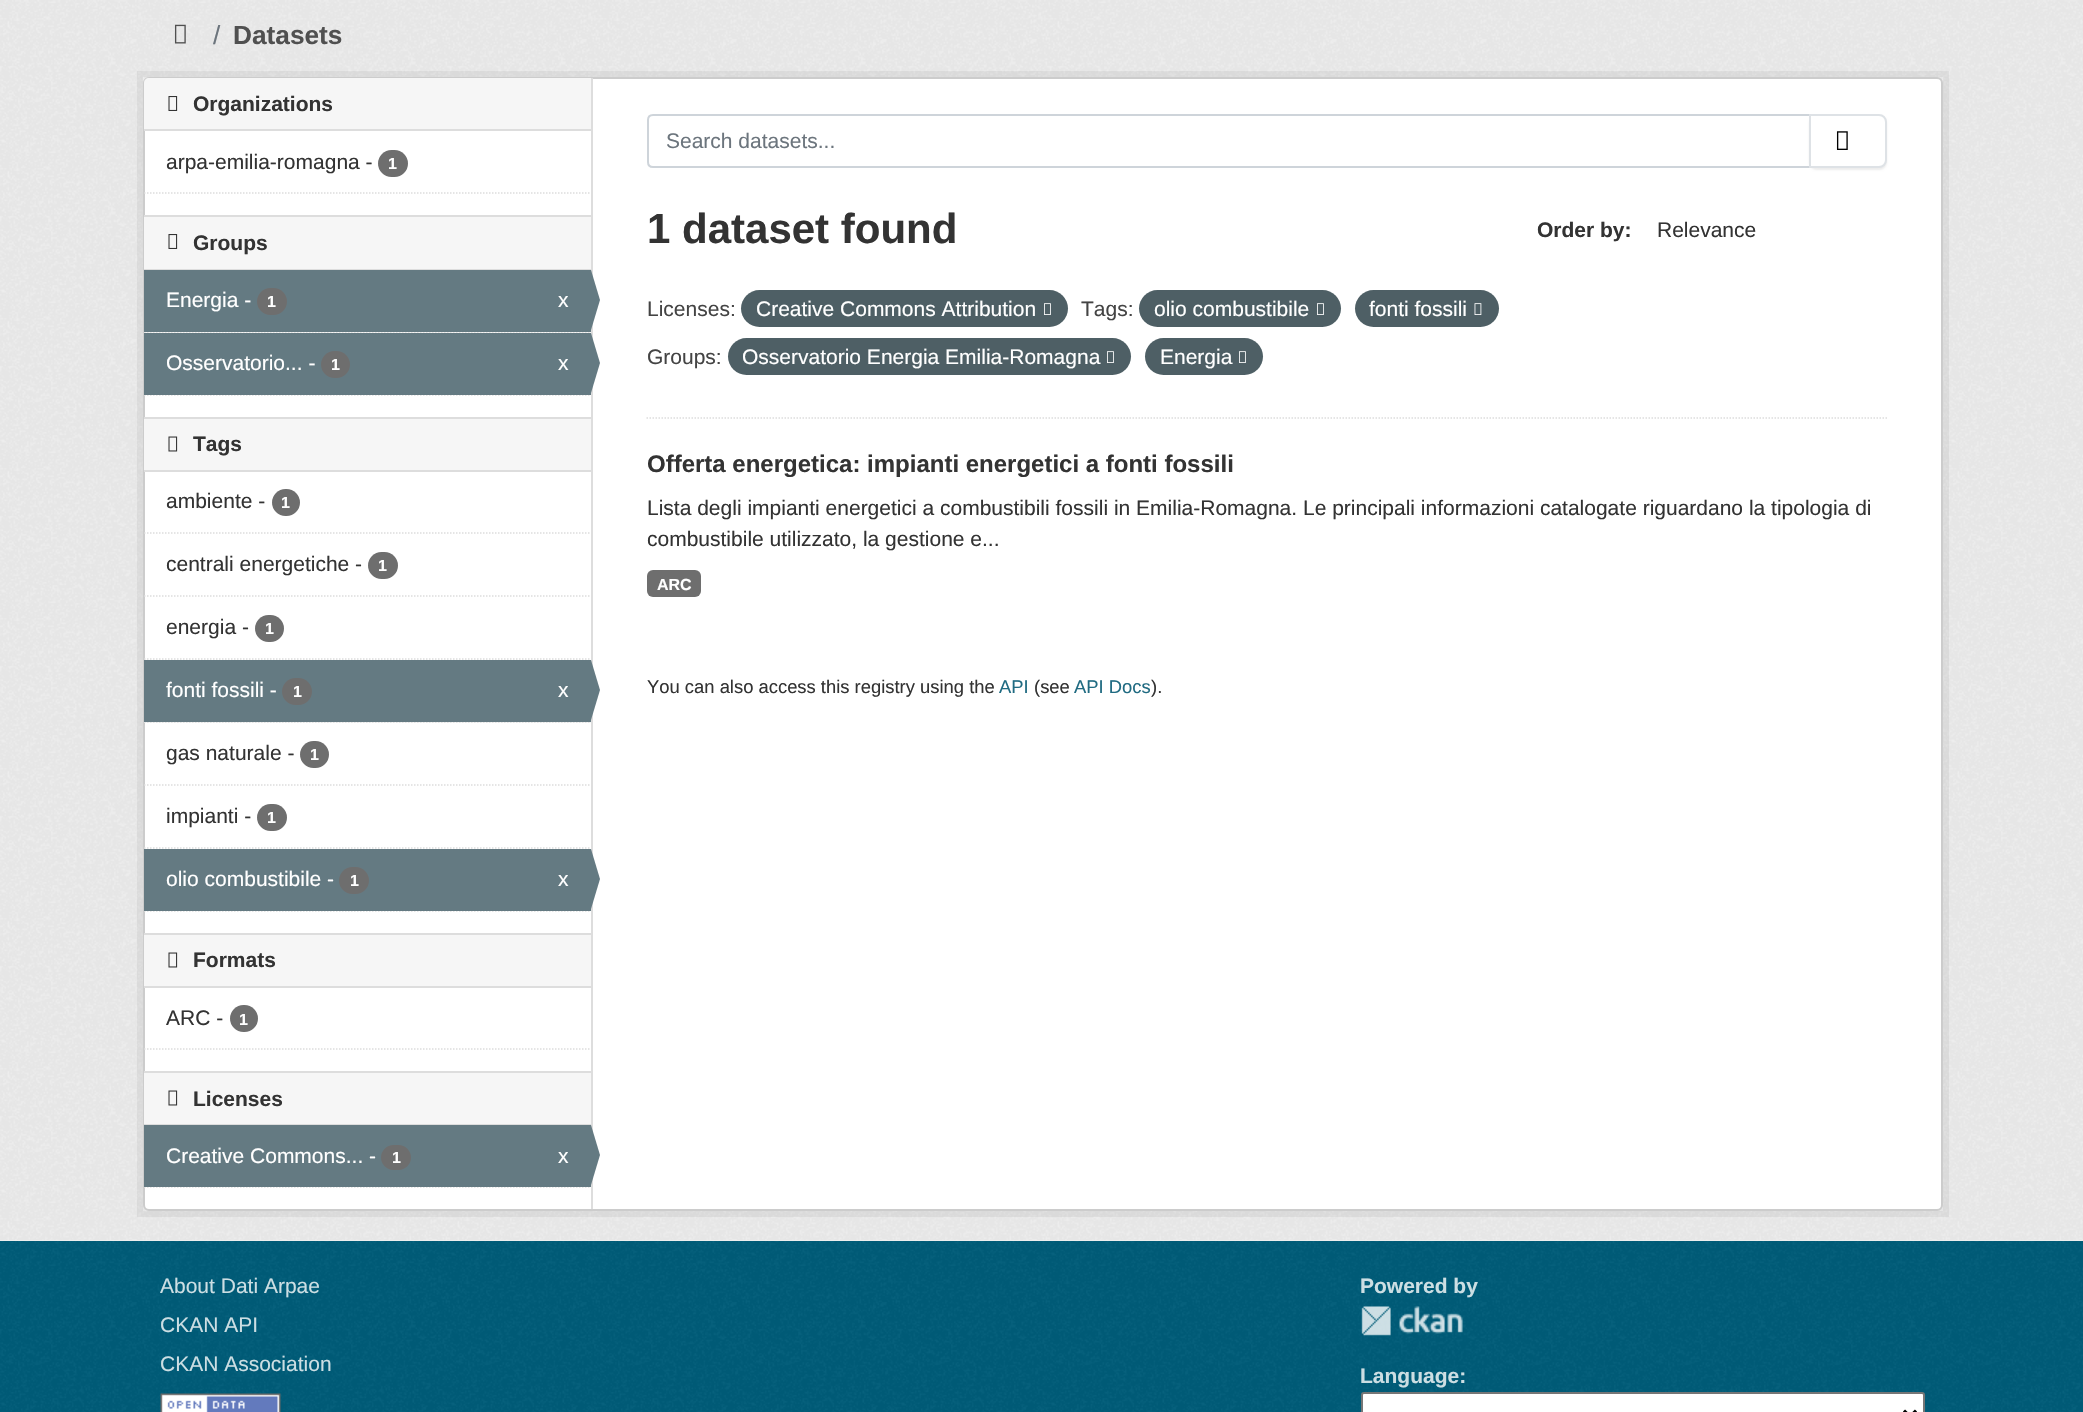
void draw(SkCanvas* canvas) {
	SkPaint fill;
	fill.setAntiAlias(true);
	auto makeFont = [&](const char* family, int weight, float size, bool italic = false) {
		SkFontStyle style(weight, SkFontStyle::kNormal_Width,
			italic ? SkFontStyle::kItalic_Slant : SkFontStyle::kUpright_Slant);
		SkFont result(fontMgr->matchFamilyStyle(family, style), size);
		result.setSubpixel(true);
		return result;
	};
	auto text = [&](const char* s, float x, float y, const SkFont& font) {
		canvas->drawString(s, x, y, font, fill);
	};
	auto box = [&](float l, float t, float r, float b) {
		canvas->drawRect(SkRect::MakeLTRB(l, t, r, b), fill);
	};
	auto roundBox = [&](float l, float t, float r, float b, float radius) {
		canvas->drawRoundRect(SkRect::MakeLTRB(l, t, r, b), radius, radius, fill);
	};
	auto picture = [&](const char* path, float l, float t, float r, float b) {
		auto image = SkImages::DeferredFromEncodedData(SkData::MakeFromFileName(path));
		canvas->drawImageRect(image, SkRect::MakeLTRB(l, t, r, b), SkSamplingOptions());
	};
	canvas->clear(0xFF005D7A);
	fill.setColor(0xFFEEEEEE);
	box(0, 0, 2083, 1241);
	picture("image0.png", 0, 0, 2083, 1240);
	picture("image1.png", 174, 24, 186, 44);
	fill.setStyle(SkPaint::kStroke_Style);
	fill.setStrokeWidth(6);
	fill.setColor(0x0D000000);
	canvas->drawRect(SkRect::MakeLTRB(140, 74, 1946, 1214), fill);
	fill.setStyle(SkPaint::kFill_Style);
	fill.setColor(0xFFFFFFFF);
	canvas->drawRoundRect(SkRect::MakeLTRB(144, 78, 1942, 1210), 5, 5, fill);
	fill.setStyle(SkPaint::kStroke_Style);
	fill.setStrokeWidth(2);
	fill.setColor(0xFFCCCCCC);
	canvas->drawRoundRect(SkRect::MakeLTRB(144, 78, 1942, 1210), 5, 5, fill);
	fill.setStyle(SkPaint::kFill_Style);
	fill.setColor(0xFFF6F6F6);
	canvas->drawPath(SkPathBuilder().moveTo(149, 78).lineTo(591, 78).lineTo(591, 131).lineTo(144, 131).lineTo(144, 83).cubicTo(144, 80, 146, 78, 149, 78).close().detach(), fill);
	fill.setColor(0xFFDDDDDD);
	box(144, 129, 591, 131);
	picture("image2.png", 168, 96, 178, 111);
	fill.setColor(0xFF6E6E6E);
	roundBox(378, 150, 408, 177, 13.5f);
	fill.setStyle(SkPaint::kStroke_Style);
	fill.setStrokeWidth(1.5f);
	fill.setColor(0xFFDDDDDD);
	fill.setPathEffect(SkDashPathEffect::Make({{1.5f, 1.5f}}, 0));
	canvas->drawPath(SkPathBuilder().moveTo(144, 193).lineTo(591, 193).detach(), fill);
	fill.setPathEffect(nullptr);
	fill.setStyle(SkPaint::kFill_Style);
	fill.setColor(0xFFF6F6F6);
	box(144, 217, 591, 269);
	fill.setColor(0xFFDDDDDD);
	box(144, 215, 591, 217);
	box(144, 269, 591, 270);
	picture("image2.png", 168, 234, 178, 249);
	fill.setColor(0xFFF6F6F6);
	box(144, 332, 591, 333);
	fill.setStyle(SkPaint::kStroke_Style);
	fill.setColor(0xFFDDDDDD);
	fill.setPathEffect(SkDashPathEffect::Make({{1.5f, 1.5f}}, 0));
	canvas->drawPath(SkPathBuilder().moveTo(144, 332).lineTo(591, 332).detach(), fill);
	fill.setPathEffect(nullptr);
	fill.setStyle(SkPaint::kFill_Style);
	fill.setColor(0xFF647A82);
	box(144, 270, 591, 332);
	fill.setColor(0xFF6E6E6E);
	roundBox(257, 288, 287, 315, 13.5f);
	fill.setColor(0xFFDDDDDD);
	box(591, 78, 593, 1209);
	fill.setColor(0xFF647A82);
	canvas->drawPath(SkPathBuilder().moveTo(591, 330).lineTo(591, 270).lineTo(600, 300).close().detach(), fill);
	fill.setStyle(SkPaint::kStroke_Style);
	fill.setColor(0xFFDDDDDD);
	fill.setPathEffect(SkDashPathEffect::Make({{1.5f, 1.5f}}, 0));
	canvas->drawPath(SkPathBuilder().moveTo(144, 395).lineTo(591, 395).detach(), fill);
	fill.setPathEffect(nullptr);
	fill.setStyle(SkPaint::kFill_Style);
	fill.setColor(0xFF647A82);
	box(144, 333, 591, 395);
	fill.setColor(0xFF6E6E6E);
	roundBox(321, 351, 350, 378, 13.5f);
	fill.setColor(0xFF647A82);
	canvas->drawPath(SkPathBuilder().moveTo(591, 393).lineTo(591, 333).lineTo(600, 363).close().detach(), fill);
	fill.setColor(0xFFF6F6F6);
	box(144, 419, 591, 470);
	fill.setColor(0xFFDDDDDD);
	box(144, 417, 591, 419);
	box(144, 470, 591, 472);
	picture("image3.png", 168, 436, 178, 452);
	fill.setStyle(SkPaint::kStroke_Style);
	fill.setPathEffect(SkDashPathEffect::Make({{1.5f, 1.5f}}, 0));
	canvas->drawPath(SkPathBuilder().moveTo(144, 533).lineTo(591, 533).detach(), fill);
	fill.setPathEffect(nullptr);
	fill.setStyle(SkPaint::kFill_Style);
	fill.setColor(0xFF6E6E6E);
	roundBox(272, 489, 300, 516, 13.5f);
	fill.setStyle(SkPaint::kStroke_Style);
	fill.setColor(0xFFDDDDDD);
	fill.setPathEffect(SkDashPathEffect::Make({{1.5f, 1.5f}}, 0));
	canvas->drawPath(SkPathBuilder().moveTo(144, 596).lineTo(591, 596).detach(), fill);
	fill.setPathEffect(nullptr);
	fill.setStyle(SkPaint::kFill_Style);
	fill.setColor(0xFF6E6E6E);
	roundBox(368, 552, 398, 579, 13.5f);
	fill.setStyle(SkPaint::kStroke_Style);
	fill.setColor(0xFFDDDDDD);
	fill.setPathEffect(SkDashPathEffect::Make({{1.5f, 1.5f}}, 0));
	canvas->drawPath(SkPathBuilder().moveTo(144, 659).lineTo(591, 659).detach(), fill);
	fill.setPathEffect(nullptr);
	fill.setStyle(SkPaint::kFill_Style);
	fill.setColor(0xFF6E6E6E);
	roundBox(255, 615, 284, 642, 13.5f);
	fill.setColor(0xFFF6F6F6);
	box(144, 722, 591, 723);
	fill.setStyle(SkPaint::kStroke_Style);
	fill.setColor(0xFFDDDDDD);
	fill.setPathEffect(SkDashPathEffect::Make({{1.5f, 1.5f}}, 0));
	canvas->drawPath(SkPathBuilder().moveTo(144, 722).lineTo(591, 722).detach(), fill);
	fill.setPathEffect(nullptr);
	fill.setStyle(SkPaint::kFill_Style);
	fill.setColor(0xFF647A82);
	box(144, 660, 591, 722);
	fill.setColor(0xFF6E6E6E);
	roundBox(282, 678, 312, 705, 13.5f);
	fill.setColor(0xFF647A82);
	canvas->drawPath(SkPathBuilder().moveTo(591, 720).lineTo(591, 660).lineTo(600, 690).close().detach(), fill);
	fill.setStyle(SkPaint::kStroke_Style);
	fill.setColor(0xFFDDDDDD);
	fill.setPathEffect(SkDashPathEffect::Make({{1.5f, 1.5f}}, 0));
	canvas->drawPath(SkPathBuilder().moveTo(144, 785).lineTo(591, 785).detach(), fill);
	fill.setPathEffect(nullptr);
	fill.setStyle(SkPaint::kFill_Style);
	fill.setColor(0xFF6E6E6E);
	roundBox(300, 741, 329, 768, 13.5f);
	fill.setStyle(SkPaint::kStroke_Style);
	fill.setColor(0xFFDDDDDD);
	fill.setPathEffect(SkDashPathEffect::Make({{1.5f, 1.5f}}, 0));
	canvas->drawPath(SkPathBuilder().moveTo(144, 848).lineTo(591, 848).detach(), fill);
	fill.setPathEffect(nullptr);
	fill.setStyle(SkPaint::kFill_Style);
	fill.setColor(0xFF6E6E6E);
	roundBox(257, 804, 287, 831, 13.5f);
	fill.setStyle(SkPaint::kStroke_Style);
	fill.setColor(0xFFDDDDDD);
	fill.setPathEffect(SkDashPathEffect::Make({{1.5f, 1.5f}}, 0));
	canvas->drawPath(SkPathBuilder().moveTo(144, 911).lineTo(591, 911).detach(), fill);
	fill.setPathEffect(nullptr);
	fill.setStyle(SkPaint::kFill_Style);
	fill.setColor(0xFF647A82);
	box(144, 849, 591, 911);
	fill.setColor(0xFF6E6E6E);
	roundBox(339, 867, 369, 894, 13.5f);
	fill.setColor(0xFF647A82);
	canvas->drawPath(SkPathBuilder().moveTo(591, 909).lineTo(591, 849).lineTo(600, 879).close().detach(), fill);
	fill.setColor(0xFFF6F6F6);
	box(144, 935, 591, 986);
	fill.setColor(0xFFDDDDDD);
	box(144, 933, 591, 935);
	box(144, 986, 591, 988);
	picture("image3.png", 168, 952, 178, 968);
	fill.setColor(0xFF6E6E6E);
	roundBox(230, 1005, 258, 1032, 13.5f);
	fill.setStyle(SkPaint::kStroke_Style);
	fill.setColor(0xFFDDDDDD);
	fill.setPathEffect(SkDashPathEffect::Make({{1.5f, 1.5f}}, 0));
	canvas->drawPath(SkPathBuilder().moveTo(144, 1049).lineTo(591, 1049).detach(), fill);
	fill.setPathEffect(nullptr);
	fill.setStyle(SkPaint::kFill_Style);
	fill.setColor(0xFFF6F6F6);
	box(144, 1073, 591, 1124);
	fill.setColor(0xFFDDDDDD);
	box(144, 1071, 591, 1073);
	box(144, 1124, 591, 1125);
	picture("image3.png", 168, 1090, 178, 1106);
	fill.setStyle(SkPaint::kStroke_Style);
	fill.setPathEffect(SkDashPathEffect::Make({{1.5f, 1.5f}}, 0));
	canvas->drawPath(SkPathBuilder().moveTo(144, 1187).lineTo(591, 1187).detach(), fill);
	fill.setPathEffect(nullptr);
	fill.setStyle(SkPaint::kFill_Style);
	fill.setColor(0xFF647A82);
	box(144, 1125, 591, 1187);
	fill.setColor(0xFF6E6E6E);
	roundBox(381, 1145, 411, 1170, 12.5f);
	fill.setColor(0xFF647A82);
	canvas->drawPath(SkPathBuilder().moveTo(591, 1185).lineTo(591, 1125).lineTo(600, 1155).close().detach(), fill);
	fill.setStyle(SkPaint::kStroke_Style);
	fill.setColor(0xFFDDDDDD);
	fill.setPathEffect(SkDashPathEffect::Make({{1.5f, 1.5f}}, 0));
	canvas->drawPath(SkPathBuilder().moveTo(646.5f, 418).lineTo(1887, 418).detach(), fill);
	fill.setPathEffect(nullptr);
	fill.setStrokeWidth(2);
	fill.setColor(0xFFCED4DA);
	canvas->drawPath(SkPathBuilder().moveTo(653, 115).lineTo(1810, 115).lineTo(1810, 167).lineTo(653, 167).cubicTo(650, 167, 648, 165, 648, 162).lineTo(648, 120).cubicTo(648, 117, 650, 115, 653, 115).close().detach(), fill);
	fill.setStyle(SkPaint::kFill_Style);
	fill.setColor(0x12000000);
	fill.setMaskFilter(SkMaskFilter::MakeBlur(kNormal_SkBlurStyle, 1));
	canvas->drawRoundRect(SkRect::MakeLTRB(1809, 116, 1887, 170), 8, 8, fill);
	fill.setMaskFilter(nullptr);
	fill.setColor(0xFFFFFFFF);
	canvas->drawPath(SkPathBuilder().moveTo(1810, 115).lineTo(1879, 115).cubicTo(1883, 115, 1886, 118, 1886, 122).lineTo(1886, 160).cubicTo(1886, 164, 1883, 167, 1879, 167).lineTo(1810, 167).close().detach(), fill);
	fill.setStyle(SkPaint::kStroke_Style);
	fill.setColor(0xFFDEE2E6);
	canvas->drawPath(SkPathBuilder().moveTo(1810, 115).lineTo(1879, 115).cubicTo(1883, 115, 1886, 118, 1886, 122).lineTo(1886, 160).cubicTo(1886, 164, 1883, 167, 1879, 167).lineTo(1810, 167).close().detach(), fill);
	picture("image4.png", 1836, 131, 1848, 150);
	fill.setStyle(SkPaint::kFill_Style);
	fill.setColor(0xFF4E5F65);
	roundBox(741, 290, 1068, 327, 18.5f);
	picture("image5.png", 1044, 303, 1051, 315);
	roundBox(1139, 290, 1341, 327, 18.5f);
	picture("image5.png", 1317, 303, 1324, 315);
	roundBox(1355, 290, 1499, 327, 18.5f);
	picture("image6.png", 1474, 303, 1482, 315);
	roundBox(728, 338, 1131, 375, 18.5f);
	picture("image5.png", 1107, 351, 1114, 363);
	roundBox(1145, 338, 1263, 375, 18.5f);
	picture("image5.png", 1239, 351, 1246, 363);
	fill.setColor(0xFF6E6E6E);
	roundBox(647, 570, 701, 597, 6);
	picture("image7.png", 0, 1241, 2083, 1412);
	picture("image8.png", 160, 1393, 281, 1412);
	picture("image9.png", 1361, 1306, 1463, 1336);
	fill.setColor(0xFFFFFFFF);
	canvas->drawRoundRect(SkRect::MakeLTRB(1362, 1393, 1924, 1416), 2, 2, fill);
	fill.setStyle(SkPaint::kStroke_Style);
	fill.setColor(0xFF767676);
	canvas->drawRoundRect(SkRect::MakeLTRB(1362, 1393, 1924, 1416), 2, 2, fill);
	fill.setStrokeWidth(3);
	fill.setColor(0xFF000000);
	canvas->drawPath(SkPathBuilder().moveTo(1904, 1410.5f).lineTo(1910, 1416.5f).lineTo(1916, 1410.5f).detach(), fill);
	auto font1 = makeFont("Liberation Sans", 400, 26.25f);
	fill.setStyle(SkPaint::kFill_Style);
	fill.setColor(0xFF6C757D);
	text("/", 213, 44, font1);
	auto font2 = makeFont("Liberation Sans", 700, 26.25f);
	fill.setColor(0xFF505050);
	text("Datasets", 233, 44, font2);
	auto font3 = makeFont("Liberation Sans", 700, 21);
	fill.setColor(0xFF333333);
	text("Organizations", 193, 111, font3);
	auto font4 = makeFont("Liberation Sans", 400, 21);
	text("arpa-emilia-romagna -", 166, 169, font4);
	auto font5 = makeFont("Liberation Sans", 700, 16);
	fill.setColor(0xFFFFFFFF);
	text("1", 388, 169, font5);
	fill.setColor(0xFF333333);
	text("Groups", 193, 250, font3);
	fill.setColor(0xFFFFFFFF);
	text("Energia -", 166, 307, font4);
	text("1", 267, 307, font5);
	text("x", 558, 307, font4);
	text("Osservatorio... -", 166, 370, font4);
	text("1", 331, 370, font5);
	text("x", 558, 370, font4);
	fill.setColor(0xFF333333);
	text("Tags", 193, 451, font3);
	text("ambiente -", 166, 508, font4);
	fill.setColor(0xFFFFFFFF);
	text("1", 281, 508, font5);
	fill.setColor(0xFF333333);
	text("centrali energetiche -", 166, 571, font4);
	fill.setColor(0xFFFFFFFF);
	text("1", 378, 571, font5);
	fill.setColor(0xFF333333);
	text("energia -", 166, 634, font4);
	fill.setColor(0xFFFFFFFF);
	text("1", 265, 634, font5);
	text("fonti fossili -", 166, 697, font4);
	text("1", 293, 697, font5);
	text("x", 558, 697, font4);
	fill.setColor(0xFF333333);
	text("gas naturale -", 166, 760, font4);
	fill.setColor(0xFFFFFFFF);
	text("1", 310, 760, font5);
	fill.setColor(0xFF333333);
	text("impianti -", 166, 823, font4);
	fill.setColor(0xFFFFFFFF);
	text("1", 267, 823, font5);
	text("olio combustibile -", 166, 886, font4);
	text("1", 350, 886, font5);
	text("x", 558, 886, font4);
	fill.setColor(0xFF333333);
	text("Formats", 193, 967, font3);
	text("ARC -", 166, 1025, font4);
	fill.setColor(0xFFFFFFFF);
	text("1", 239, 1025, font5);
	fill.setColor(0xFF333333);
	text("Licenses", 193, 1106, font3);
	fill.setColor(0xFFFFFFFF);
	text("Creative Commons... -", 166, 1163, font4);
	text("1", 392, 1163, font5);
	text("x", 558, 1163, font4);
	fill.setColor(0xFF6C757D);
	text("Search datasets...", 666, 148, font4);
	auto font6 = makeFont("Liberation Sans", 700, 42);
	fill.setColor(0xFF333333);
	text("1 dataset found", 647, 243, font6);
	text("Order by:", 1537, 237, font3);
	text("Relevance", 1657, 237, font4);
	fill.setColor(0xFF444444);
	text("Licenses:", 647, 316, font4);
	fill.setColor(0xFFFFFFFF);
	text("Creative Commons Attribution", 756, 316, font4);
	fill.setColor(0xFF444444);
	text("Tags:", 1081, 316, font4);
	fill.setColor(0xFFFFFFFF);
	text("olio combustibile", 1154, 316, font4);
	text("fonti fossili", 1369, 316, font4);
	fill.setColor(0xFF444444);
	text("Groups:", 647, 364, font4);
	fill.setColor(0xFFFFFFFF);
	text("Osservatorio Energia Emilia-Romagna", 742, 364, font4);
	text("Energia", 1160, 364, font4);
	auto font7 = makeFont("Liberation Sans", 700, 24);
	fill.setColor(0xFF333333);
	text("Offerta energetica: impianti energetici a fonti fossili", 647, 472, font7);
	text("Lista degli impianti energetici a combustibili fossili in Emilia-Romagna. Le principali informazioni catalogate riguardano la tipologia di", 647, 515, font4);
	text("combustibile utilizzato, la gestione e...", 647, 546, font4);
	fill.setColor(0xFFFFFFFF);
	text("ARC", 657, 590, font5);
	auto font8 = makeFont("Liberation Sans", 400, 18.4f);
	fill.setColor(0xFF333333);
	text("You can also access this registry using the", 647, 693, font8);
	fill.setColor(0xFF206B82);
	text("API", 999, 693, font8);
	fill.setColor(0xFF333333);
	text("(see", 1034, 693, font8);
	fill.setColor(0xFF206B82);
	text("API Docs", 1074, 693, font8);
	fill.setColor(0xFF333333);
	text(").", 1151, 693, font8);
	fill.setColor(0xFFCCDEE3);
	text("About Dati Arpae", 160, 1293, font4);
	text("CKAN API", 160, 1332, font4);
	text("CKAN Association", 160, 1371, font4);
	text("Powered by", 1360, 1293, font3);
	text("Language:", 1360, 1383, font3);
}
